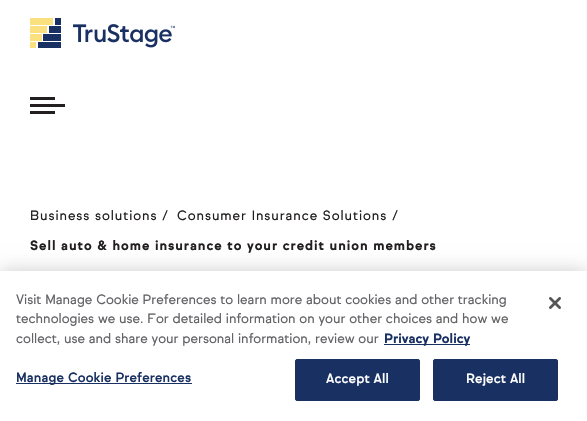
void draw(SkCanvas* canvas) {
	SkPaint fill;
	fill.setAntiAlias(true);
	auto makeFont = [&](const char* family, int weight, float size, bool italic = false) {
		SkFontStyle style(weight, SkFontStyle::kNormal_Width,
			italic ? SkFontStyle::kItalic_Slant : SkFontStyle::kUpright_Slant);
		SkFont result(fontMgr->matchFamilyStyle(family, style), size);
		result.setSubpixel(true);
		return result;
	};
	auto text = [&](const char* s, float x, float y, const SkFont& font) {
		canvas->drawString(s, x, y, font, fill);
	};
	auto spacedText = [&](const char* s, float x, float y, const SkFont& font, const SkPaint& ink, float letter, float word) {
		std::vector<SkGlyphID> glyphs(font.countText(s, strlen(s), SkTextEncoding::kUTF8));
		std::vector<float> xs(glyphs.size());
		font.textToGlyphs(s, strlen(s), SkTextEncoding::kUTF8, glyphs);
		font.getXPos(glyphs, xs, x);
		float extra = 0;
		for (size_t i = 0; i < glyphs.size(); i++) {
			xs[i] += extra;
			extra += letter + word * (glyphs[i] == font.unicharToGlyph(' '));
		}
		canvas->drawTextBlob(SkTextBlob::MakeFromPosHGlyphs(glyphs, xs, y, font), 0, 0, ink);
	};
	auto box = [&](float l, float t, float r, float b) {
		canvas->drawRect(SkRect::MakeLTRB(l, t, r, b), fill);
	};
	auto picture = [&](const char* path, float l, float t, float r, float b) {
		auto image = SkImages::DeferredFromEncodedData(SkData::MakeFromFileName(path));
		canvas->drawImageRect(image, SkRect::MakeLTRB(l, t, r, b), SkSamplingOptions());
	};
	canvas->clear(0xFFFFFFFF);
	picture("image0.png", 30, 18, 175, 48);
	fill.setColor(0xFF231F20);
	box(30, 104, 65, 107);
	box(30, 97, 55, 100);
	box(30, 111, 55, 114);
	fill.setColor(0x33000000);
	fill.setMaskFilter(SkMaskFilter::MakeBlur(kNormal_SkBlurStyle, 9));
	canvas->drawRect(SkRect::MakeLTRB(0, 271, 587, 421), fill);
	fill.setMaskFilter(nullptr);
	fill.setColor(0xFFFFFFFF);
	box(0, 271, 587, 421);
	fill.setColor(0xFF193062);
	box(384, 344, 470, 345);
	box(16, 383, 192, 384);
	canvas->drawRoundRect(SkRect::MakeLTRB(295.5f, 359.5f, 419.5f, 400.5f), 1.5f, 1.5f, fill);
	fill.setStyle(SkPaint::kStroke_Style);
	fill.setStrokeWidth(1);
	canvas->drawRoundRect(SkRect::MakeLTRB(295.5f, 359.5f, 419.5f, 400.5f), 1.5f, 1.5f, fill);
	fill.setStyle(SkPaint::kFill_Style);
	canvas->drawRoundRect(SkRect::MakeLTRB(433.5f, 359.5f, 557.5f, 400.5f), 1.5f, 1.5f, fill);
	fill.setStyle(SkPaint::kStroke_Style);
	canvas->drawRoundRect(SkRect::MakeLTRB(433.5f, 359.5f, 557.5f, 400.5f), 1.5f, 1.5f, fill);
	picture("image1.png", 549, 297, 561, 309);
	auto font1 = makeFont("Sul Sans", 400, 13);
	fill.setStyle(SkPaint::kFill_Style);
	fill.setColor(0xFF231F20);
	spacedText("Business solutions", 30, 220, font1, fill, 0.93f, 0);
	spacedText("/", 162, 220, font1, fill, 0.93f, 0);
	spacedText("Consumer Insurance Solutions", 177, 220, font1, fill, 0.93f, 0);
	spacedText("/", 392, 220, font1, fill, 0.93f, 0);
	auto font2 = makeFont("Sul Sans", 700, 13);
	spacedText("Sell auto & home insurance to your credit union members", 30, 250, font2, fill, 0.93f, 0);
	fill.setColor(0xFF646468);
	text("Visit Manage Cookie Preferences to learn more about cookies and other tracking", 16, 304, font1);
	text("technologies we use. For detailed information on your other choices and how we", 16, 323, font1);
	text("collect, use and share your personal information, review our", 16, 343, font1);
	fill.setColor(0xFF193062);
	text("Privacy Policy", 384, 343, font2);
	auto font3 = makeFont("Sul Sans", 500, 13);
	spacedText("Manage Cookie Preferences", 16, 382, font3, fill, 0.1f, 0);
	fill.setColor(0xFFFFFFFF);
	spacedText("Accept All", 326, 383, font3, fill, 0.1f, 0);
	spacedText("Reject All", 466, 383, font3, fill, 0.1f, 0);
}
